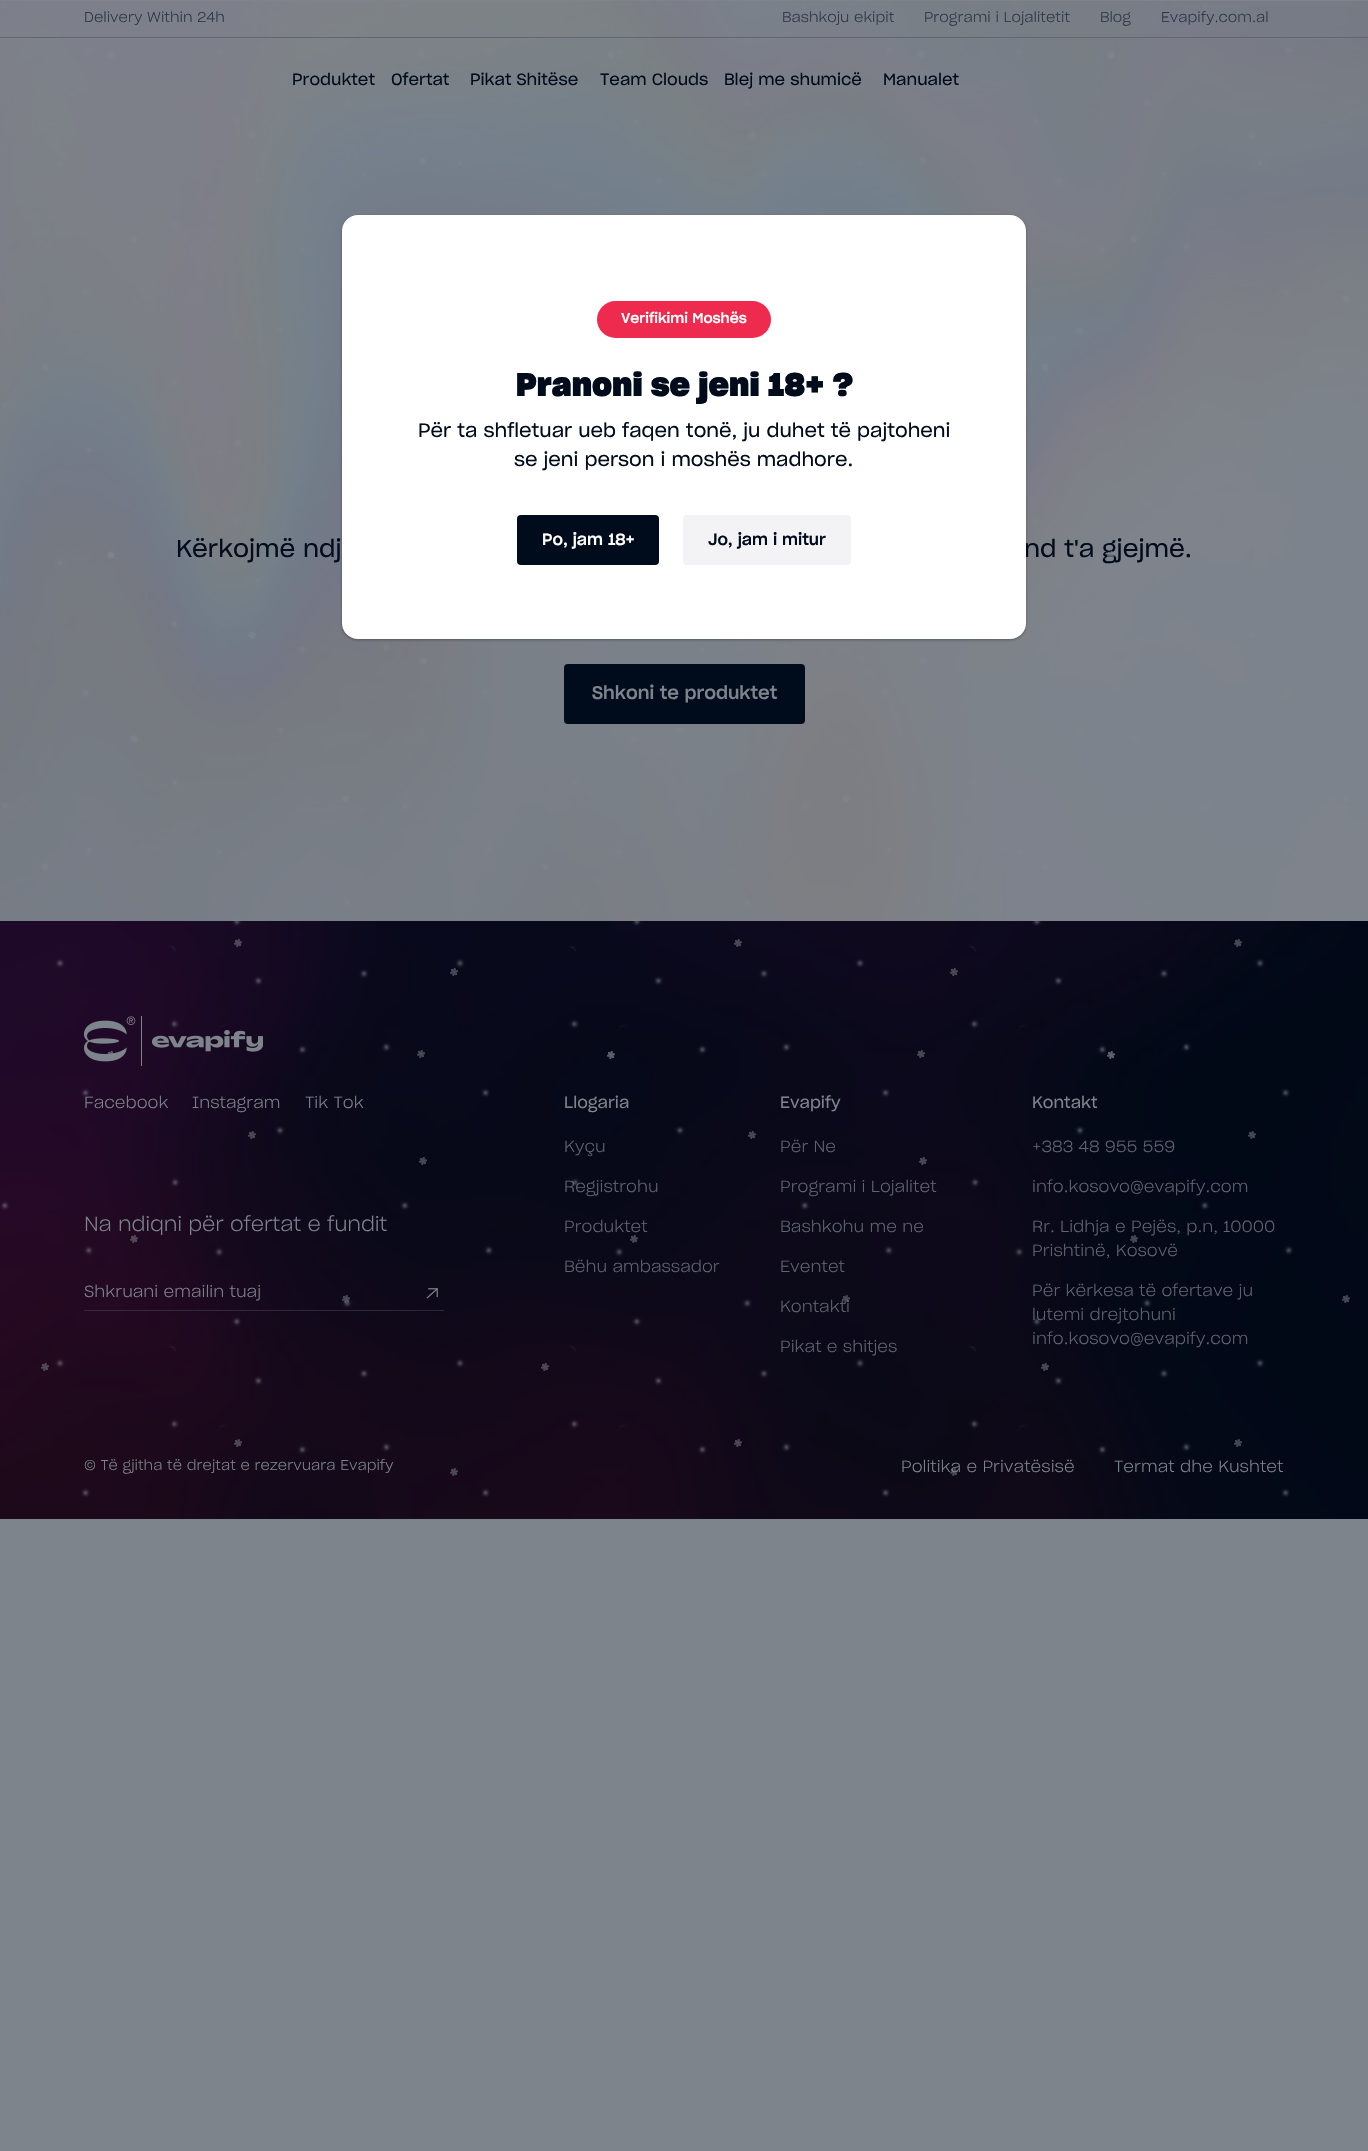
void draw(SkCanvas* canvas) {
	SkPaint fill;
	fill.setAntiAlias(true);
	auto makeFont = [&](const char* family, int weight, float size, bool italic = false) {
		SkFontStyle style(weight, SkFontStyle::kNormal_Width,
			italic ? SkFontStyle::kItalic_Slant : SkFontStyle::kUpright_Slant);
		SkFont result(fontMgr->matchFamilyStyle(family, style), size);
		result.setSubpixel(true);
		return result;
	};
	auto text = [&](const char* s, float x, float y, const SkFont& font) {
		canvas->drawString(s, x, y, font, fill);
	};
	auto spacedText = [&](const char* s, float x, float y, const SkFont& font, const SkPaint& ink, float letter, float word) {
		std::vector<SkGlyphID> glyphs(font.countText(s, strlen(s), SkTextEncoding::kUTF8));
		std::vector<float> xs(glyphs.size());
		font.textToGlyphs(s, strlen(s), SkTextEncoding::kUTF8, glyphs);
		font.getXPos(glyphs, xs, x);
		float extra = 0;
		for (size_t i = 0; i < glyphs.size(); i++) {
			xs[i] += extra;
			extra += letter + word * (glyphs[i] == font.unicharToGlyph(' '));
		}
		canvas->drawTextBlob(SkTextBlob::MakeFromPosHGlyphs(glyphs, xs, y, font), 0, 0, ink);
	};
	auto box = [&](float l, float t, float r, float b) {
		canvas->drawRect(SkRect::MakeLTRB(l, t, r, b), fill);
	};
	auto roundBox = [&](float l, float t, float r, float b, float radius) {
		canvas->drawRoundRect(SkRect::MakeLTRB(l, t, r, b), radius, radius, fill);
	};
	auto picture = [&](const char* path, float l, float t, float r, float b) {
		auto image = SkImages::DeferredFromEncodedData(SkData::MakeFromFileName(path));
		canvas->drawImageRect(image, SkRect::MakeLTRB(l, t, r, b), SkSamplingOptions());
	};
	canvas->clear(0xFF7E848C);
	picture("image1.png", 0, 1, 1368, 921);
	fill.setColor(0xFF616672);
	box(0, 37, 1368, 38);
	fill.setColor(0xFF000B1C);
	roundBox(564, 664, 805, 724, 4);
	picture("image2.png", 0, 921, 1368, 1519);
	picture("image3.png", 84, 1016, 263, 1066);
	fill.setColor(0x407E848C);
	box(84, 1310, 444, 1311);
	picture("image4.png", 426, 1288, 438, 1299);
	auto font1 = makeFont("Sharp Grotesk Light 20", 300, 14);
	fill.setColor(0xFF2A3546);
	text("Delivery Within 24h", 84, 22, font1);
	text("Bashkoju ekipit", 782, 22, font1);
	text("Programi i Lojalitetit", 924, 22, font1);
	text("Blog", 1100, 22, font1);
	text("Evapify.com.al", 1161, 22, font1);
	auto font2 = makeFont("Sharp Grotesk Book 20", 400, 24);
	fill.setColor(0xFF000B1C);
	text("Kërkojmë ndj", 176, 557, font2);
	text("nd t'a gjejmë.", 1024, 557, font2);
	auto font3 = makeFont("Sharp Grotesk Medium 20", 500, 18);
	fill.setColor(0xFF7E848C);
	text("Shkoni te produktet", 592, 699, font3);
	auto font4 = makeFont("Sharp Grotesk Light 20", 300, 16);
	text("Facebook", 84, 1108, font4);
	text("Instagram", 192, 1108, font4);
	text("Tik Tok", 305, 1108, font4);
	auto font5 = makeFont("Sharp Grotesk Light 20", 300, 20);
	spacedText("Na ndiqni për ofertat e fundit", 84, 1231, font5, fill, -0.2f, 0);
	text("Shkruani emailin tuaj", 84, 1297, font4);
	auto font6 = makeFont("Sharp Grotesk Book 20", 400, 16);
	text("Llogaria", 564, 1108, font6);
	fill.setColor(0xFF616570);
	text("Kyçu", 564, 1152, font4);
	text("Regjistrohu", 564, 1192, font4);
	text("Produktet", 564, 1232, font4);
	text("Bëhu ambassador", 564, 1272, font4);
	fill.setColor(0xFF7E848C);
	text("Evapify", 780, 1108, font6);
	fill.setColor(0xFF616570);
	text("Për Ne", 780, 1152, font4);
	text("Programi i Lojalitet", 780, 1192, font4);
	text("Bashkohu me ne", 780, 1232, font4);
	text("Eventet", 780, 1272, font4);
	text("Kontakti", 780, 1312, font4);
	text("Pikat e shitjes", 780, 1352, font4);
	fill.setColor(0xFF7E848C);
	text("Kontakt", 1032, 1108, font6);
	fill.setColor(0xFF616570);
	text("+383 48 955 559", 1032, 1152, font4);
	text("info.kosovo@evapify.com", 1032, 1192, font4);
	text("Rr. Lidhja e Pejës, p.n, 10000", 1032, 1232, font4);
	text("Prishtinë, Kosovë", 1032, 1256, font4);
	text("Për kërkesa të ofertave ju", 1032, 1296, font4);
	text("lutemi drejtohuni", 1032, 1320, font4);
	text("info.kosovo@evapify.com", 1032, 1344, font4);
	fill.setColor(0xFF7E848C);
	text("© Të gjitha të drejtat e rezervuara Evapify", 84, 1470, font1);
	text("Politika e Privatësisë", 901, 1472, font4);
	text("Termat dhe Kushtet", 1114, 1472, font4);
	picture("image0.png", 0, 3, 1350, 1497);
	fill.setColor(0x4D000000);
	fill.setMaskFilter(SkMaskFilter::MakeBlur(kNormal_SkBlurStyle, 1.5f));
	canvas->drawRoundRect(SkRect::MakeLTRB(342, 216, 1026, 640), 16, 16, fill);
	fill.setMaskFilter(nullptr);
	fill.setColor(0xFFFFFFFF);
	roundBox(342, 215, 1026, 639, 16);
	fill.setColor(0xFFF3F3F5);
	roundBox(683, 515, 851, 565, 4);
	auto font7 = makeFont("Sharp Grotesk Medium 20", 500, 16);
	fill.setColor(0xFF000B1C);
	text("Jo, jam i mitur", 708, 545, font7);
	roundBox(517, 515, 659, 565, 4);
	fill.setColor(0xFFFFFFFF);
	text("Po, jam 18+", 542, 545, font7);
	auto font8 = makeFont("Sharp Grotesk Book 20", 400, 19);
	fill.setColor(0xFF000B1C);
	text("se jeni person i moshës madhore.", 514, 466, font8);
	text("Për ta shfletuar ueb faqen tonë, ju duhet të pajtoheni", 418, 437, font8);
	auto font9 = makeFont("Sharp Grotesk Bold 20", 700, 32);
	text("Pranoni se jeni 18+ ?", 516, 396, font9);
	fill.setColor(0xFFEE2B4E);
	roundBox(597, 301, 771, 338, 18.5f);
	auto font10 = makeFont("Sharp Grotesk Medium 20", 500, 14);
	fill.setColor(0xFFFFFFFF);
	text("Verifikimi Moshës", 621, 323, font10);
	fill.setColor(0xFF000B1C);
	text("Manualet", 883, 85, font6);
	text("Blej me shumicë", 724, 85, font6);
	text("Team Clouds", 600, 85, font6);
	text("Pikat Shitëse", 470, 85, font6);
	text("Ofertat", 391, 85, font6);
	text("Produktet", 292, 85, font6);
}
